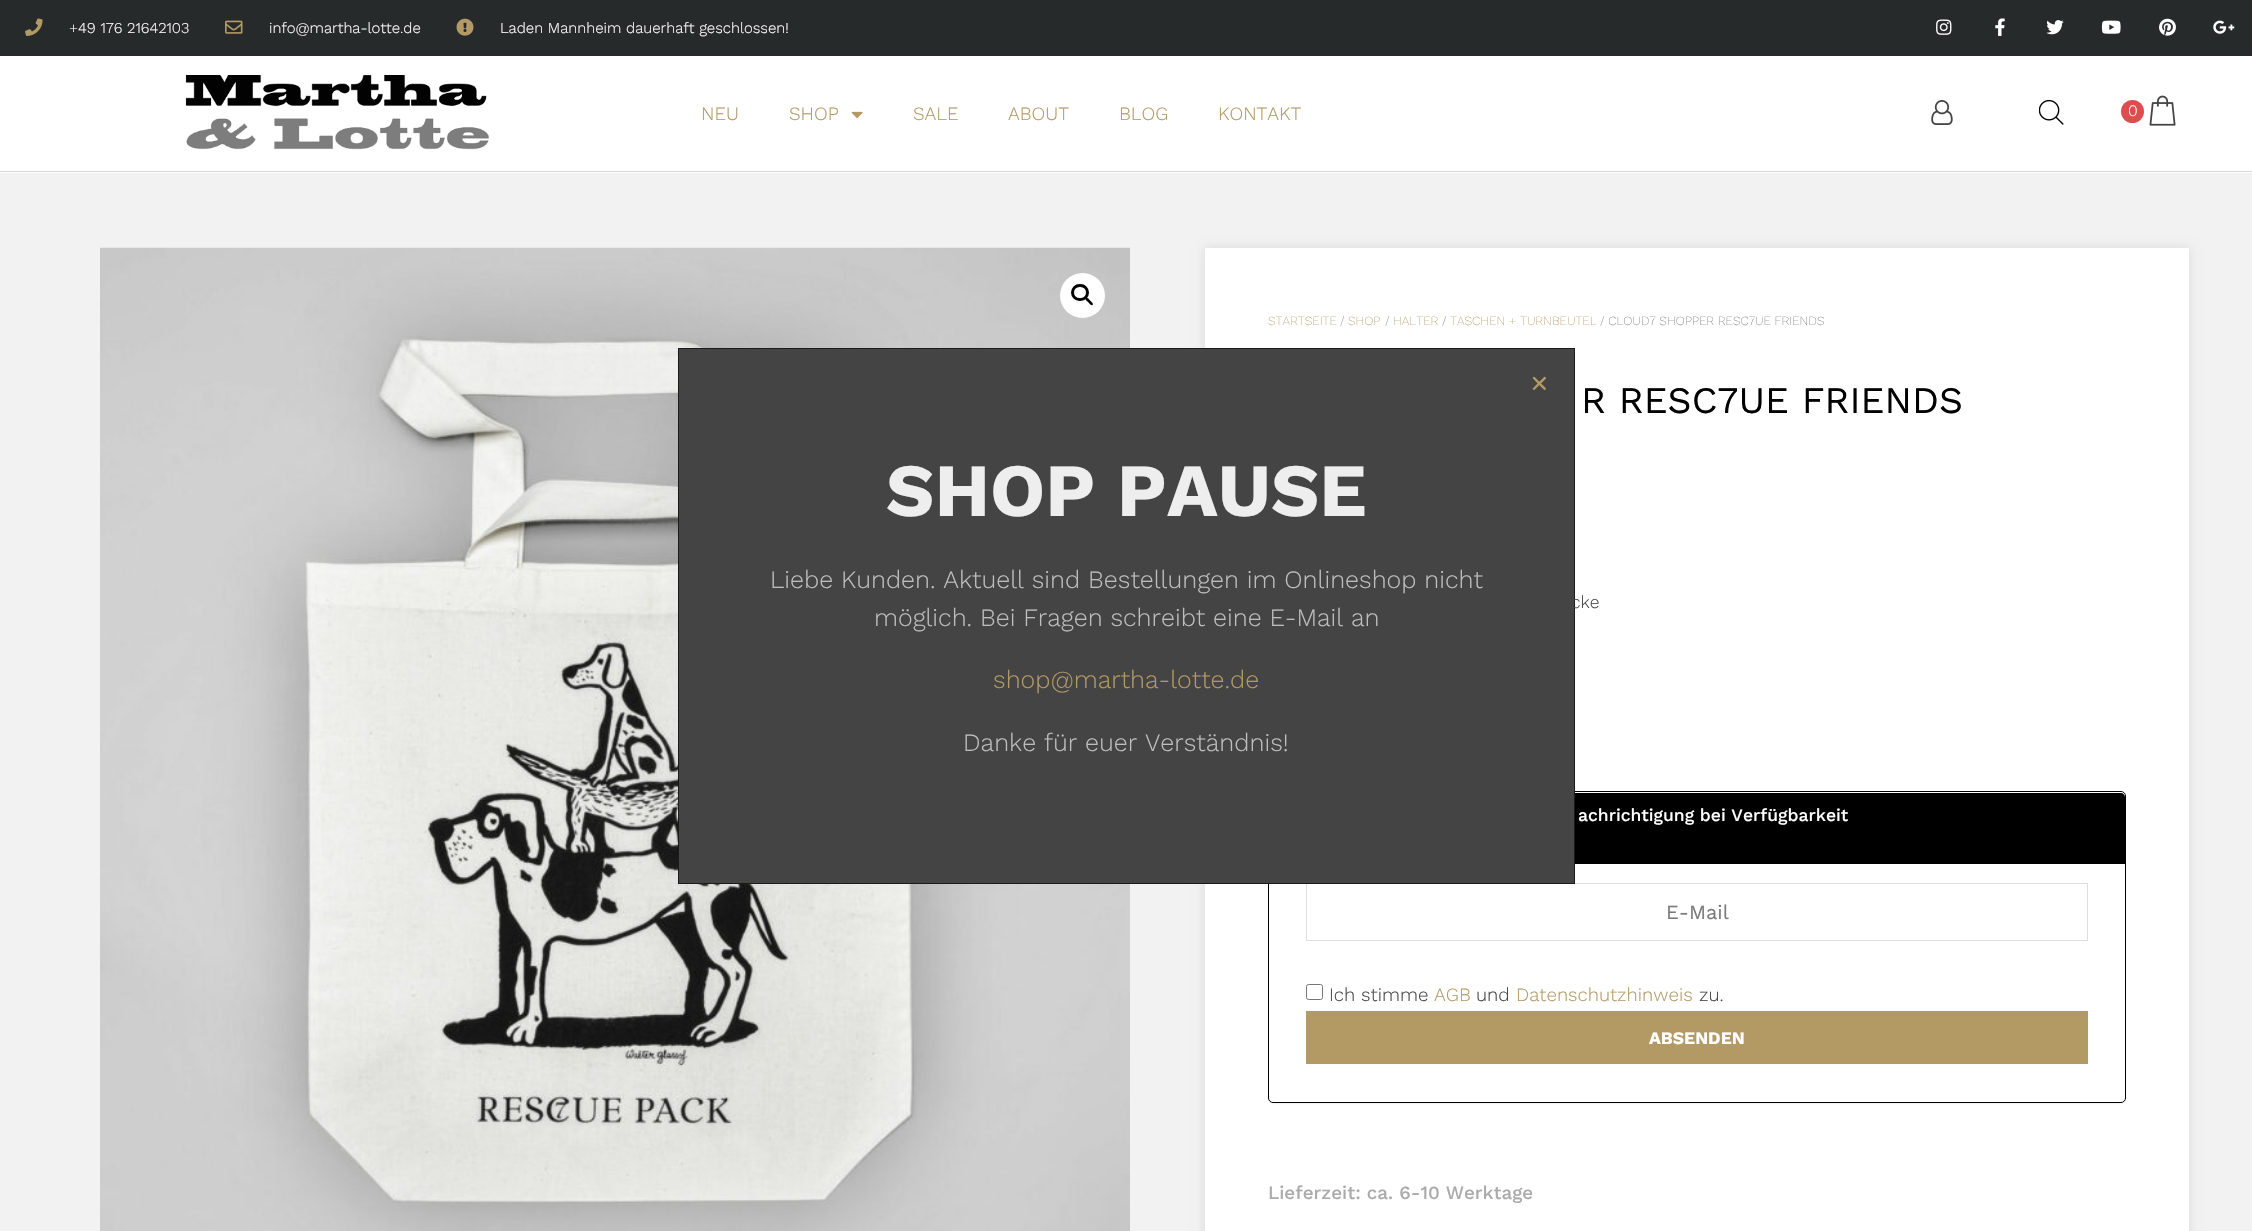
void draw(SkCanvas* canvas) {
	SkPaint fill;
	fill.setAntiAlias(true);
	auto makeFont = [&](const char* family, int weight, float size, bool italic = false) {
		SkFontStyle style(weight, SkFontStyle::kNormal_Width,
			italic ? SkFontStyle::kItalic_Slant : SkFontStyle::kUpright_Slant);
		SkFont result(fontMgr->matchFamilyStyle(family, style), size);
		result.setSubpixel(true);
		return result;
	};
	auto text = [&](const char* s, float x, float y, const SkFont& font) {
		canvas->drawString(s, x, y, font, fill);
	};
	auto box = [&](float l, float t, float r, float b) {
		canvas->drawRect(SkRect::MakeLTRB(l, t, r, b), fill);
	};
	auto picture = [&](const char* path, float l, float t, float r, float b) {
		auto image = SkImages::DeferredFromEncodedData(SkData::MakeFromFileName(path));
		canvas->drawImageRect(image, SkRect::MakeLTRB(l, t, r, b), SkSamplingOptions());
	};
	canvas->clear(0xFFFFFFFF);
	fill.setColor(0xFF262A2B);
	box(0, 0, 2252, 56);
	picture("image0.png", 25, 18, 43, 36);
	picture("image1.png", 225, 20, 243, 34);
	picture("image2.png", 456, 18, 474, 36);
	picture("image3.png", 1936, 19, 1952, 35);
	picture("image4.png", 1995, 18, 2005, 36);
	picture("image5.png", 2046, 20, 2064, 35);
	picture("image6.png", 2101, 20, 2121, 34);
	picture("image7.png", 2159, 18, 2176, 36);
	picture("image8.png", 2213, 20, 2235, 34);
	fill.setColor(0xFFD8D8D8);
	box(0, 171, 2252, 172);
	picture("image9.png", 185, 75, 489, 150);
	picture("image10.png", 851, 111, 863, 118);
	picture("image11.png", 1931, 100, 1953, 125);
	picture("image12.png", 2039, 100, 2064, 125);
	fill.setColor(0xFFDD4D4D);
	canvas->drawCircle(2132.5f, 111.5f, 11.5f, fill);
	picture("image13.png", 2149, 95, 2176, 126);
	fill.setColor(0xFFF2F2F2);
	box(0, 173, 2252, 1231);
	picture("image14.png", 100, 247, 1130, 1231);
	fill.setColor(0xFFFFFFFF);
	canvas->drawCircle(1082.5f, 295.5f, 22.5f, fill);
	fill.setStyle(SkPaint::kStroke_Style);
	fill.setStrokeWidth(3);
	fill.setColor(0xFF000000);
	canvas->drawRoundRect(SkRect::MakeLTRB(1072.5f, 285.5f, 1087.5f, 299.5f), 7, 7, fill);
	fill.setStyle(SkPaint::kFill_Style);
	canvas->drawPath(SkPathBuilder().moveTo(1085.5f, 297.5f).cubicTo(1087, 296.5f, 1089, 299.5f, 1090, 300.5f).cubicTo(1090.5f, 301, 1094, 303.5f, 1092.5f, 305).cubicTo(1091, 306, 1089, 303, 1088, 302).cubicTo(1087.5f, 301.5f, 1084, 299, 1085.5f, 297.5f).close().detach(), fill);
	fill.setColor(0x1A000000);
	fill.setMaskFilter(SkMaskFilter::MakeBlur(kNormal_SkBlurStyle, 5));
	canvas->drawRect(SkRect::MakeLTRB(1205, 248, 2189, 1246), fill);
	fill.setMaskFilter(nullptr);
	fill.setColor(0xFFFFFFFF);
	box(1205, 248, 2189, 1231);
	canvas->save();
	canvas->clipPath(SkPathBuilder(SkPathFillType::kEvenOdd).moveTo(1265, 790).lineTo(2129, 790).lineTo(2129, 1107).lineTo(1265, 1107).close().moveTo(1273, 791).lineTo(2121, 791).cubicTo(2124, 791, 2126, 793, 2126, 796).lineTo(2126, 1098).cubicTo(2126, 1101, 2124, 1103, 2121, 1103).lineTo(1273, 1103).cubicTo(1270, 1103, 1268, 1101, 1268, 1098).lineTo(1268, 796).cubicTo(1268, 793, 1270, 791, 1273, 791).close().detach(), true);
	fill.setColor(0x0D000000);
	fill.setMaskFilter(SkMaskFilter::MakeBlur(kNormal_SkBlurStyle, 0.5f));
	canvas->drawRoundRect(SkRect::MakeLTRB(1268, 793, 2126, 1104), 5, 5, fill);
	fill.setMaskFilter(nullptr);
	canvas->restore();
	fill.setStyle(SkPaint::kStroke_Style);
	fill.setStrokeWidth(1);
	fill.setColor(0xFF000000);
	canvas->drawRoundRect(SkRect::MakeLTRB(1268.5f, 791.5f, 2125.5f, 1102.5f), 4.5f, 4.5f, fill);
	fill.setStyle(SkPaint::kFill_Style);
	canvas->drawPath(SkPathBuilder().moveTo(1273, 793).lineTo(2121, 793).cubicTo(2123, 793, 2125, 795, 2125, 797).lineTo(2125, 864).lineTo(1269, 864).lineTo(1269, 797).cubicTo(1269, 795, 1271, 793, 1273, 793).close().detach(), fill);
	fill.setStyle(SkPaint::kStroke_Style);
	fill.setColor(0xFFDEDEE5);
	canvas->drawRect(SkRect::MakeLTRB(1306.5f, 883.5f, 2087.5f, 940.5f), fill);
	fill.setColor(0xFF767676);
	canvas->drawRoundRect(SkRect::MakeLTRB(1306.5f, 984.5f, 1322.5f, 999.5f), 2, 2, fill);
	fill.setStyle(SkPaint::kFill_Style);
	fill.setColor(0xFFB39964);
	box(1306, 1011, 2088, 1064);
	fill.setColor(0xFF444444);
	canvas->drawRect(SkRect::MakeLTRB(678.5f, 348.5f, 1574.5f, 883.5f), fill);
	fill.setStyle(SkPaint::kStroke_Style);
	fill.setColor(0xFF1B1B1B);
	canvas->drawRect(SkRect::MakeLTRB(678.5f, 348.5f, 1574.5f, 883.5f), fill);
	picture("image15.png", 1532, 376, 1546, 390);
	auto font1 = makeFont("Work Sans", 300, 15);
	fill.setStyle(SkPaint::kFill_Style);
	fill.setColor(0xFFFFFFFF);
	text("+49 176 21642103", 69, 33, font1);
	text("info@martha-lotte.de", 269, 33, font1);
	text("Laden Mannheim dauerhaft geschlossen!", 500, 33, font1);
	auto font2 = makeFont("Work Sans", 300, 18.75f);
	fill.setColor(0xFFB39964);
	text("NEU", 701, 120, font2);
	text("SHOP", 789, 120, font2);
	text("SALE", 913, 120, font2);
	text("ABOUT", 1008, 120, font2);
	text("BLOG", 1119, 120, font2);
	text("KONTAKT", 1218, 120, font2);
	auto font3 = makeFont("Work Sans", 300, 16);
	fill.setColor(0xFFFFFFFF);
	text("0", 2128, 116, font3);
	auto font4 = makeFont("Work Sans", 200, 12.5f);
	fill.setColor(0xFFB39964);
	text("STARTSEITE", 1268, 325, font4);
	fill.setColor(0xFF7A7A7A);
	text("/", 1340, 325, font4);
	fill.setColor(0xFFB39964);
	text("SHOP", 1348, 325, font4);
	fill.setColor(0xFF7A7A7A);
	text("/", 1385, 325, font4);
	fill.setColor(0xFFB39964);
	text("HALTER", 1393, 325, font4);
	fill.setColor(0xFF7A7A7A);
	text("/", 1442, 325, font4);
	fill.setColor(0xFFB39964);
	text("TASCHEN + TURNBEUTEL", 1450, 325, font4);
	fill.setColor(0xFF7A7A7A);
	text("/ CLOUD7 SHOPPER RESC7UE FRIENDS", 1600, 325, font4);
	auto font5 = makeFont("Work Sans", 400, 37.5f);
	fill.setColor(0xFF000000);
	text("R RESC7UE FRIENDS", 1581, 413, font5);
	auto font6 = makeFont("Work Sans", 300, 17.5f);
	fill.setColor(0xFF444444);
	text("cke", 1571, 608, font6);
	auto font7 = makeFont("Work Sans", 500, 17.5f);
	fill.setColor(0xFFFFFFFF);
	text("achrichtigung bei Verfügbarkeit", 1578, 821, font7);
	auto font8 = makeFont("Work Sans", 400, 20);
	fill.setColor(0xFF7A7A7A);
	text("E-Mail", 1666, 919, font8);
	fill.setColor(0xFF444444);
	text("Ich stimme", 1329, 1001, font2);
	fill.setColor(0xFFB39964);
	text("AGB", 1434, 1001, font2);
	fill.setColor(0xFF444444);
	text("und", 1476, 1001, font2);
	fill.setColor(0xFFB39964);
	text("Datenschutzhinweis", 1516, 1001, font2);
	fill.setColor(0xFF444444);
	text("zu.", 1699, 1001, font2);
	auto font9 = makeFont("Work Sans", 700, 17.5f);
	fill.setColor(0xFFFFFFFF);
	text("ABSENDEN", 1649, 1044, font9);
	auto font10 = makeFont("Work Sans", 500, 18.75f);
	fill.setColor(0xFFABABAB);
	text("Lieferzeit: ca. 6-10 Werktage", 1268, 1199, font10);
	auto font11 = makeFont("Work Sans", 700, 75);
	fill.setColor(0xFFEEEEEE);
	text("SHOP PAUSE", 886, 516, font11);
	auto font12 = makeFont("Work Sans", 300, 25);
	fill.setColor(0xFFBEBEBE);
	text("Liebe Kunden. Aktuell sind Bestellungen im Onlineshop nicht", 770, 588, font12);
	text("möglich. Bei Fragen schreibt eine E-Mail an", 874, 626, font12);
	fill.setColor(0xFFB39964);
	text("shop@martha-lotte.de", 993, 688, font12);
	fill.setColor(0xFFBEBEBE);
	text("Danke für euer Verständnis!", 963, 751, font12);
}
